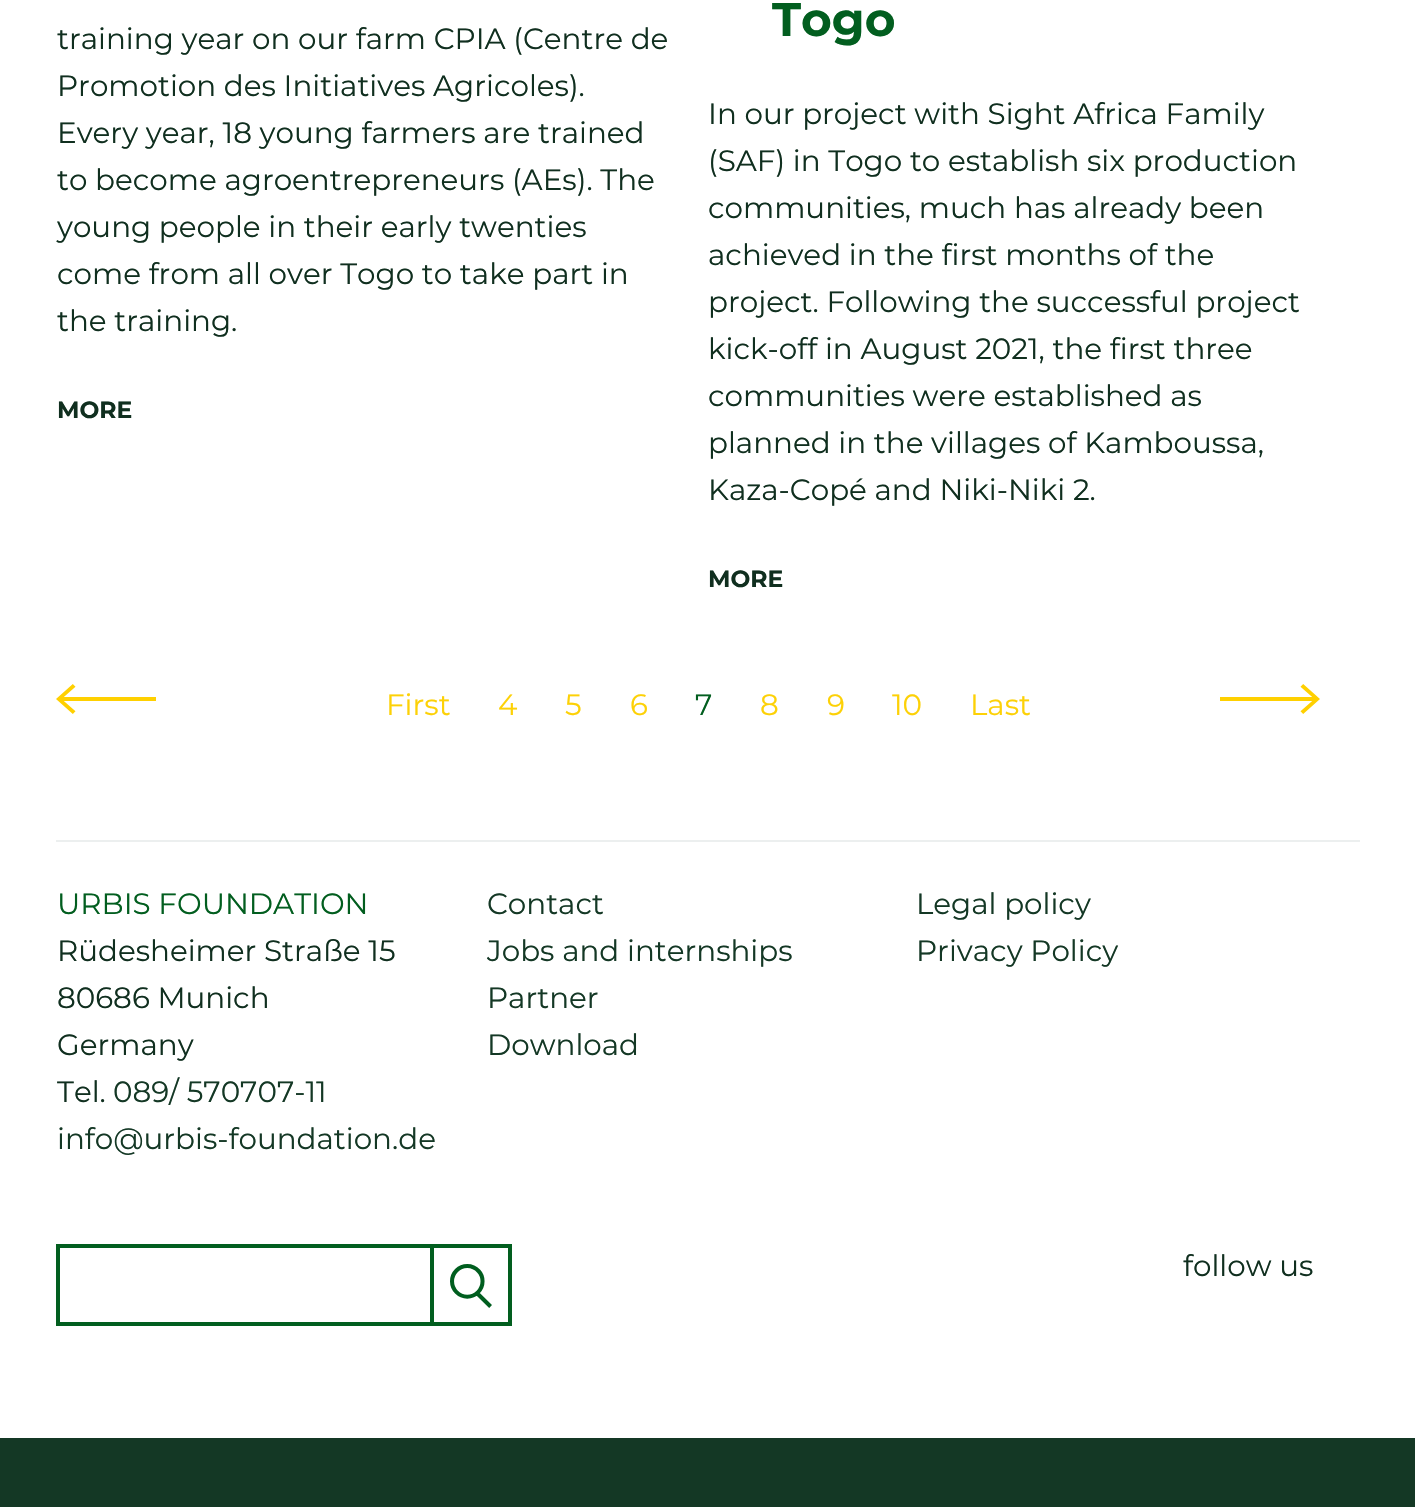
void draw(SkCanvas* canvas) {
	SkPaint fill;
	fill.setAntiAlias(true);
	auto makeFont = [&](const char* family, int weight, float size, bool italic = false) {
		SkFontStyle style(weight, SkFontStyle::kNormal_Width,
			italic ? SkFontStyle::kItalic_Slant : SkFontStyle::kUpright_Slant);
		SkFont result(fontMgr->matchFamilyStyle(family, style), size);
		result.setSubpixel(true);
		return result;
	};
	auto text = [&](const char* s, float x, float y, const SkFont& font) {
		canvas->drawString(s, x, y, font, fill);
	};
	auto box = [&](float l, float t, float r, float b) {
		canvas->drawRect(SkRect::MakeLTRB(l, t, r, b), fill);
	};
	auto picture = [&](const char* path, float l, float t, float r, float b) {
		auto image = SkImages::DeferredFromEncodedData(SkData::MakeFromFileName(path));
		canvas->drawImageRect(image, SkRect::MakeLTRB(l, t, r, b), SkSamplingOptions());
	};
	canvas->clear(0xFFFFFFFF);
	picture("image0.png", 56, 684, 156, 714);
	picture("image1.png", 1220, 684, 1320, 714);
	fill.setColor(0xFF143825);
	box(0, 1438, 1415, 1507);
	fill.setColor(0xFFECEFEF);
	box(56, 840, 1360, 842);
	fill.setStyle(SkPaint::kStroke_Style);
	fill.setStrokeWidth(4);
	fill.setColor(0xFF025E1F);
	canvas->drawRect(SkRect::MakeLTRB(58, 1246, 510, 1324), fill);
	canvas->drawRect(SkRect::MakeLTRB(432, 1246, 510, 1324), fill);
	picture("image2.png", 450, 1264, 492, 1308);
	auto font1 = makeFont("Montserrat", 400, 29.4f);
	fill.setStyle(SkPaint::kFill_Style);
	fill.setColor(0xFF102F1F);
	text("training year on our farm CPIA (Centre de", 57, 49, font1);
	text("Promotion des Initiatives Agricoles).", 57, 96, font1);
	text("Every year, 18 young farmers are trained", 57, 143, font1);
	text("to become agroentrepreneurs (AEs). The", 57, 190, font1);
	text("young people in their early twenties", 57, 237, font1);
	text("come from all over Togo to take part in", 57, 284, font1);
	text("the training.", 57, 331, font1);
	auto font2 = makeFont("Montserrat", 700, 23.5f);
	text("MORE", 57, 418, font2);
	auto font3 = makeFont("Montserrat", 700, 47);
	fill.setColor(0xFF025E1F);
	text("Togo", 772, 36, font3);
	fill.setColor(0xFF102F1F);
	text("In our project with Sight Africa Family", 708, 124, font1);
	text("(SAF) in Togo to establish six production", 708, 171, font1);
	text("communities, much has already been", 708, 218, font1);
	text("achieved in the first months of the", 708, 265, font1);
	text("project. Following the successful project", 708, 312, font1);
	text("kick-off in August 2021, the first three", 708, 359, font1);
	text("communities were established as", 708, 406, font1);
	text("planned in the villages of Kamboussa,", 708, 453, font1);
	text("Kaza-Copé and Niki-Niki 2.", 708, 500, font1);
	text("MORE", 708, 587, font2);
	fill.setColor(0xFFFDD106);
	text("First", 386, 715, font1);
	text("4", 498, 715, font1);
	text("5", 565, 715, font1);
	text("6", 630, 715, font1);
	fill.setColor(0xFF025E1F);
	text("7", 695, 715, font1);
	fill.setColor(0xFFFDD106);
	text("8", 760, 715, font1);
	text("9", 827, 715, font1);
	text("10", 892, 715, font1);
	text("Last", 970, 715, font1);
	fill.setColor(0xFF025E1F);
	text("URBIS FOUNDATION", 57, 914, font1);
	fill.setColor(0xFF102F1F);
	text("Rüdesheimer Straße 15", 57, 961, font1);
	text("80686 Munich", 57, 1008, font1);
	text("Germany", 57, 1055, font1);
	text("Tel.", 57, 1102, font1);
	fill.setColor(0xFF143825);
	text("089/ 570707-11", 113, 1102, font1);
	text("info@urbis-foundation.de", 57, 1149, font1);
	text("Contact", 487, 914, font1);
	text("Jobs and internships", 487, 961, font1);
	text("Partner", 487, 1008, font1);
	text("Download", 487, 1055, font1);
	text("Legal policy", 916, 914, font1);
	text("Privacy Policy", 916, 961, font1);
	fill.setColor(0xFF102F1F);
	text("follow us", 1183, 1276, font1);
}
